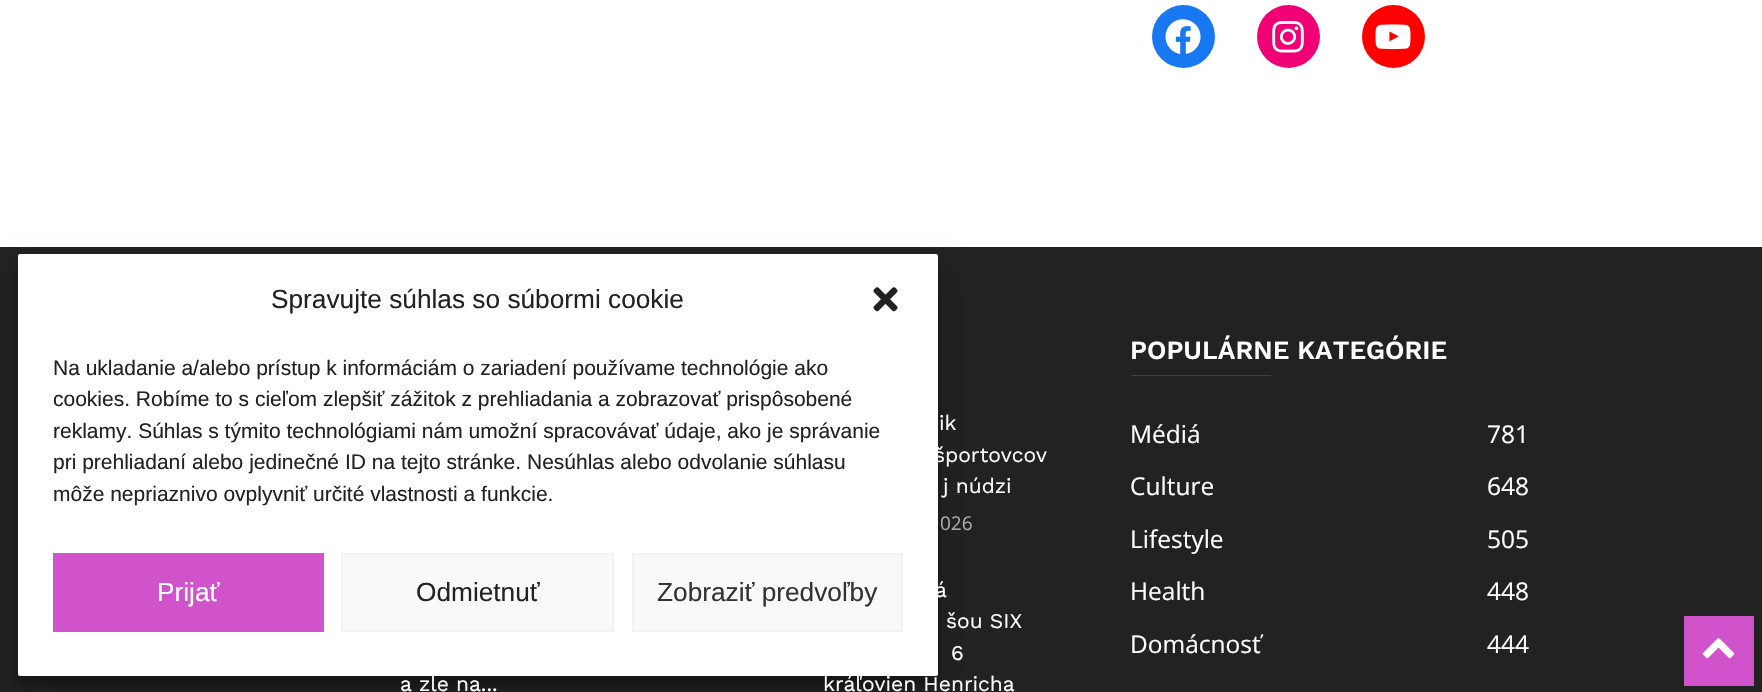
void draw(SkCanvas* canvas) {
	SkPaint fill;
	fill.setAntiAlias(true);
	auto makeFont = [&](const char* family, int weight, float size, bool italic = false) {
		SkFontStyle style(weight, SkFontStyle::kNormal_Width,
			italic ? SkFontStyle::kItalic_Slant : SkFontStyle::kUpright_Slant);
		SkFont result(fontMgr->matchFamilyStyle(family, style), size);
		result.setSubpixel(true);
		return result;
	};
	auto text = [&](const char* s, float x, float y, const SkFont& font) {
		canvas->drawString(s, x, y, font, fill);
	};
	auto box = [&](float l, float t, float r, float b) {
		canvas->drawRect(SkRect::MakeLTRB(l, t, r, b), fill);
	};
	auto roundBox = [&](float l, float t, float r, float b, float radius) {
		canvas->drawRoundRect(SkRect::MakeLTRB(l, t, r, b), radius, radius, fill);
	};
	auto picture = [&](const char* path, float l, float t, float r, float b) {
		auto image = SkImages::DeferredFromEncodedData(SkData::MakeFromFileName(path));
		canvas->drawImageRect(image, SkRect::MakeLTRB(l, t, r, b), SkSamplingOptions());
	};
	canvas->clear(0xFFFFFFFF);
	fill.setColor(0xFF222222);
	box(0, 247, 1762, 692);
	fill.setColor(0x3B000000);
	fill.setMaskFilter(SkMaskFilter::MakeBlur(kNormal_SkBlurStyle, 5));
	canvas->drawRoundRect(SkRect::MakeLTRB(18, 264, 938, 686), 2, 2, fill);
	fill.setMaskFilter(nullptr);
	fill.setColor(0x30000000);
	fill.setMaskFilter(SkMaskFilter::MakeBlur(kNormal_SkBlurStyle, 17.5f));
	canvas->drawRoundRect(SkRect::MakeLTRB(18, 271, 938, 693), 2, 2, fill);
	fill.setMaskFilter(nullptr);
	fill.setColor(0xFFFFFFFF);
	roundBox(18, 254, 938, 676, 2);
	picture("image0.png", 873, 287, 898, 312);
	fill.setColor(0xFFD153CC);
	box(53, 553, 324, 632);
	fill.setColor(0xFFF9F9F9);
	canvas->drawRect(SkRect::MakeLTRB(342, 554, 613, 631), fill);
	fill.setStyle(SkPaint::kStroke_Style);
	fill.setStrokeWidth(2);
	fill.setColor(0xFFF2F2F2);
	canvas->drawRect(SkRect::MakeLTRB(342, 554, 613, 631), fill);
	fill.setStyle(SkPaint::kFill_Style);
	fill.setColor(0xFFF9F9F9);
	canvas->drawRect(SkRect::MakeLTRB(633, 554, 902, 631), fill);
	fill.setStyle(SkPaint::kStroke_Style);
	fill.setColor(0xFFF2F2F2);
	canvas->drawRect(SkRect::MakeLTRB(633, 554, 902, 631), fill);
	fill.setStyle(SkPaint::kFill_Style);
	fill.setColor(0xFF1778F2);
	canvas->drawCircle(1183.5f, 36.5f, 31.5f, fill);
	picture("image1.png", 1165, 19, 1201, 54);
	fill.setColor(0xFFF00075);
	canvas->drawCircle(1288.5f, 36.5f, 31.5f, fill);
	picture("image2.png", 1272, 21, 1304, 53);
	fill.setColor(0xFFFF0000);
	canvas->drawCircle(1393.5f, 36.5f, 31.5f, fill);
	picture("image3.png", 1375, 24, 1411, 50);
	fill.setColor(0xFF573155);
	box(1131, 375, 1271, 376);
	fill.setColor(0xFFD153CC);
	box(1684, 616, 1754, 686);
	picture("image4.png", 1702, 638, 1735, 659);
	auto font1 = makeFont("Liberation Sans", 400, 26.25f);
	fill.setColor(0xFF222222);
	text("Spravujte súhlas so súbormi cookie", 271, 308, font1);
	auto font2 = makeFont("Liberation Sans", 400, 21);
	text("Na ukladanie a/alebo prístup k informáciám o zariadení používame technológie ako", 53, 375, font2);
	text("cookies. Robíme to s cieľom zlepšiť zážitok z prehliadania a zobrazovať prispôsobené", 53, 406, font2);
	text("reklamy. Súhlas s týmito technológiami nám umožní spracovávať údaje, ako je správanie", 53, 438, font2);
	text("pri prehliadaní alebo jedinečné ID na tejto stránke. Nesúhlas alebo odvolanie súhlasu", 53, 469, font2);
	text("môže nepriaznivo ovplyvniť určité vlastnosti a funkcie.", 53, 501, font2);
	fill.setColor(0xFFFFFFFF);
	text("Prijať", 157, 601, font1);
	fill.setColor(0xFF222222);
	text("Odmietnuť", 416, 601, font1);
	fill.setColor(0xFF333333);
	text("Zobraziť predvoľby", 657, 601, font1);
	auto font3 = makeFont("Work Sans", 400, 21);
	fill.setColor(0xFFFFFFFF);
	text("ik", 939, 430, font3);
	text("športovcov", 934, 462, font3);
	text("j núdzi", 943, 493, font3);
	auto font4 = makeFont("Open Sans", 400, 19);
	fill.setColor(0xFFAAAAAA);
	text("026", 940, 530, font4);
	fill.setColor(0xFFFFFFFF);
	text("a zle na...", 400, 691, font3);
	text("á", 935, 597, font3);
	text("šou SIX", 946, 628, font3);
	text("6", 951, 660, font3);
	text("kráľovien Henricha", 823, 691, font3);
	auto font5 = makeFont("Work Sans", 600, 26.25f);
	text("POPULÁRNE KATEGÓRIE", 1130, 359, font5);
	auto font6 = makeFont("Open Sans", 400, 24.5f);
	text("Médiá", 1130, 443, font6);
	text("781", 1487, 443, font6);
	text("Culture", 1130, 495, font6);
	text("648", 1487, 495, font6);
	text("Lifestyle", 1130, 548, font6);
	text("505", 1487, 548, font6);
	text("Health", 1130, 600, font6);
	text("448", 1487, 600, font6);
	text("Domácnosť", 1130, 653, font6);
	text("444", 1487, 653, font6);
}
